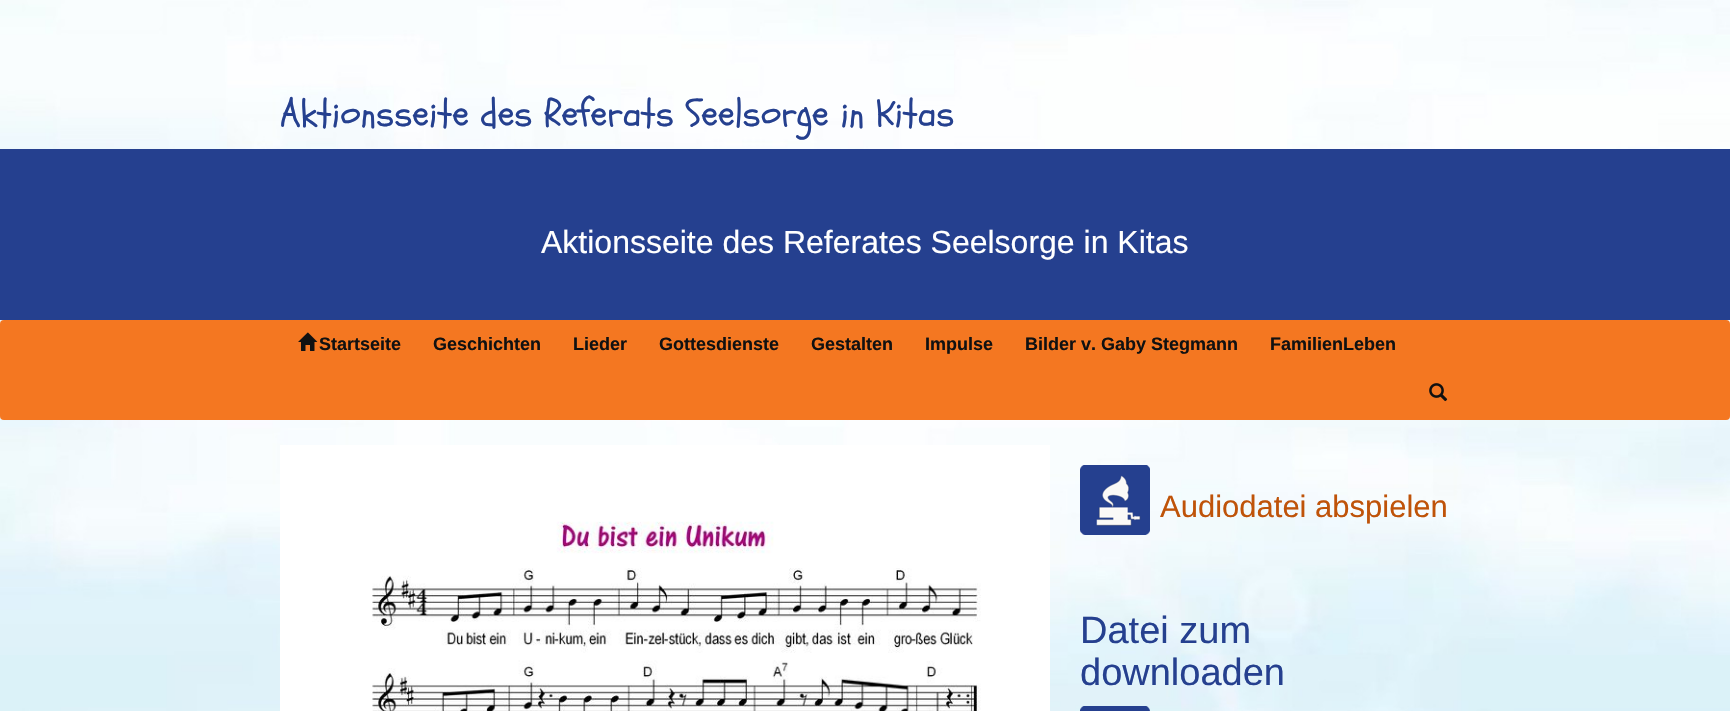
void draw(SkCanvas* canvas) {
	SkPaint fill;
	fill.setAntiAlias(true);
	auto makeFont = [&](const char* family, int weight, float size, bool italic = false) {
		SkFontStyle style(weight, SkFontStyle::kNormal_Width,
			italic ? SkFontStyle::kItalic_Slant : SkFontStyle::kUpright_Slant);
		SkFont result(fontMgr->matchFamilyStyle(family, style), size);
		result.setSubpixel(true);
		return result;
	};
	auto text = [&](const char* s, float x, float y, const SkFont& font) {
		canvas->drawString(s, x, y, font, fill);
	};
	auto box = [&](float l, float t, float r, float b) {
		canvas->drawRect(SkRect::MakeLTRB(l, t, r, b), fill);
	};
	auto roundBox = [&](float l, float t, float r, float b, float radius) {
		canvas->drawRoundRect(SkRect::MakeLTRB(l, t, r, b), radius, radius, fill);
	};
	auto picture = [&](const char* path, float l, float t, float r, float b) {
		auto image = SkImages::DeferredFromEncodedData(SkData::MakeFromFileName(path));
		canvas->drawImageRect(image, SkRect::MakeLTRB(l, t, r, b), SkSamplingOptions());
	};
	canvas->clear(0xFFFFFFFF);
	picture("image0.png", 0, 0, 1730, 711);
	fill.setColor(0xFF25408F);
	box(0, 149, 1730, 320);
	fill.setColor(0xFFF47721);
	roundBox(0, 320, 1730, 420, 4);
	picture("image1.png", 298, 332, 318, 351);
	picture("image2.png", 1429, 383, 1448, 402);
	picture("image3.png", 280, 445, 1050, 711);
	picture("image4.png", 1080, 465, 1150, 535);
	picture("image5.png", 1080, 706, 1150, 711);
	auto font1 = makeFont("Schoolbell", 400, 38);
	fill.setColor(0xFF25408F);
	text("Aktionsseite des Referats Seelsorge in Kitas", 280, 126, font1);
	auto font2 = makeFont("Liberation Sans", 400, 32);
	fill.setColor(0xFFFFFFFF);
	text("Aktionsseite des Referates Seelsorge in Kitas", 541, 253, font2);
	auto font3 = makeFont("Liberation Sans", 700, 18);
	fill.setColor(0xFF111111);
	text("Startseite", 319, 350, font3);
	text("Geschichten", 433, 350, font3);
	text("Lieder", 573, 350, font3);
	text("Gottesdienste", 659, 350, font3);
	text("Gestalten", 811, 350, font3);
	text("Impulse", 925, 350, font3);
	text("Bilder v. Gaby Stegmann", 1025, 350, font3);
	text("FamilienLeben", 1270, 350, font3);
	auto font4 = makeFont("Liberation Sans", 400, 31);
	fill.setColor(0xFFBF5309);
	text("Audiodatei abspielen", 1160, 517, font4);
	auto font5 = makeFont("Liberation Sans", 400, 38);
	fill.setColor(0xFF25408F);
	text("Datei zum", 1080, 643, font5);
	text("downloaden", 1080, 685, font5);
}
